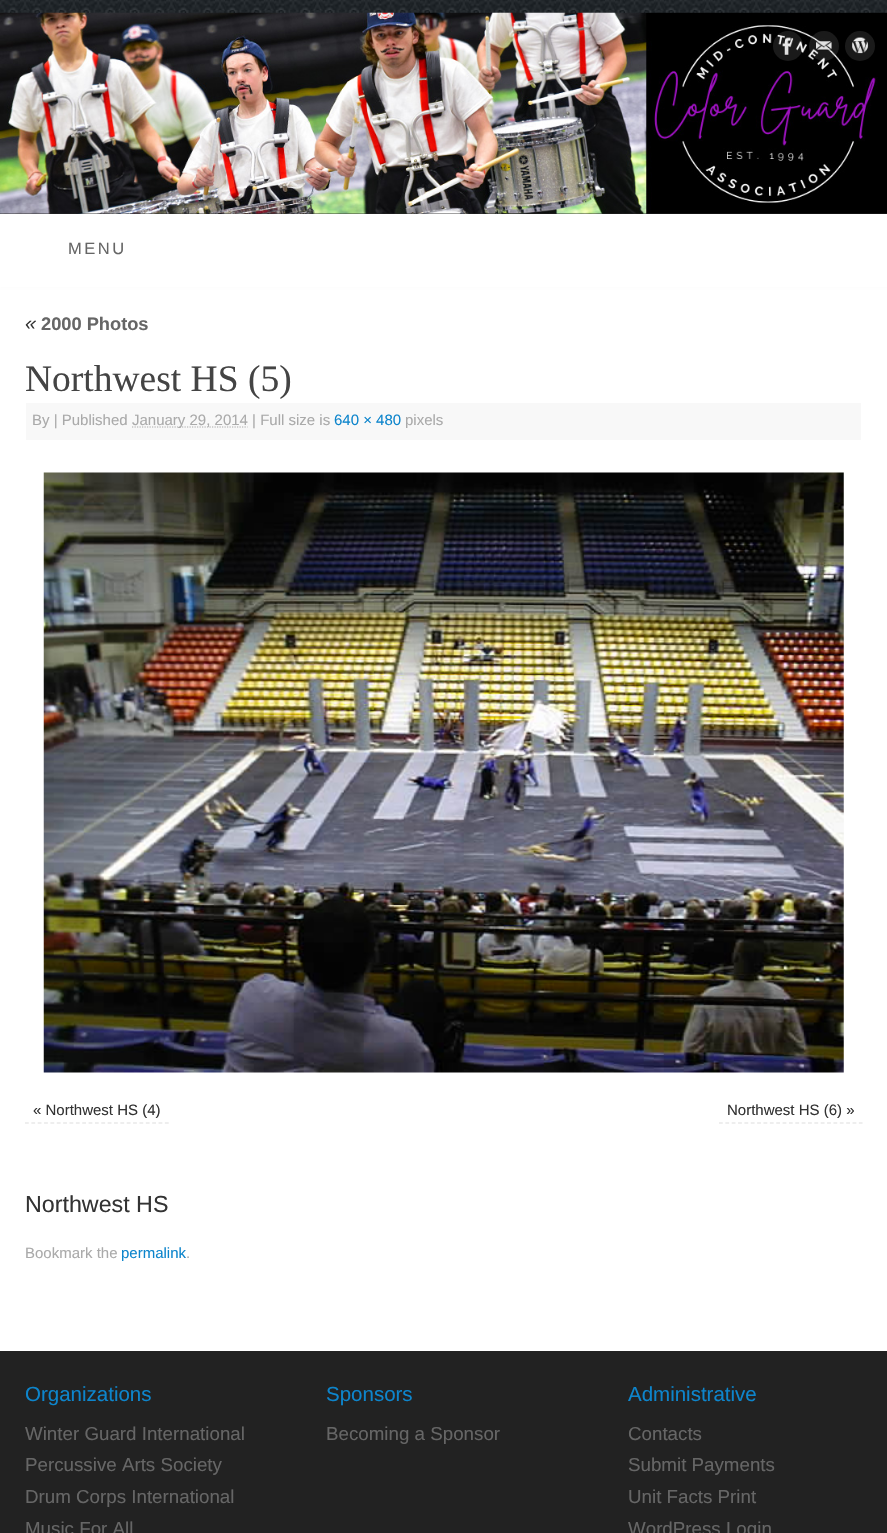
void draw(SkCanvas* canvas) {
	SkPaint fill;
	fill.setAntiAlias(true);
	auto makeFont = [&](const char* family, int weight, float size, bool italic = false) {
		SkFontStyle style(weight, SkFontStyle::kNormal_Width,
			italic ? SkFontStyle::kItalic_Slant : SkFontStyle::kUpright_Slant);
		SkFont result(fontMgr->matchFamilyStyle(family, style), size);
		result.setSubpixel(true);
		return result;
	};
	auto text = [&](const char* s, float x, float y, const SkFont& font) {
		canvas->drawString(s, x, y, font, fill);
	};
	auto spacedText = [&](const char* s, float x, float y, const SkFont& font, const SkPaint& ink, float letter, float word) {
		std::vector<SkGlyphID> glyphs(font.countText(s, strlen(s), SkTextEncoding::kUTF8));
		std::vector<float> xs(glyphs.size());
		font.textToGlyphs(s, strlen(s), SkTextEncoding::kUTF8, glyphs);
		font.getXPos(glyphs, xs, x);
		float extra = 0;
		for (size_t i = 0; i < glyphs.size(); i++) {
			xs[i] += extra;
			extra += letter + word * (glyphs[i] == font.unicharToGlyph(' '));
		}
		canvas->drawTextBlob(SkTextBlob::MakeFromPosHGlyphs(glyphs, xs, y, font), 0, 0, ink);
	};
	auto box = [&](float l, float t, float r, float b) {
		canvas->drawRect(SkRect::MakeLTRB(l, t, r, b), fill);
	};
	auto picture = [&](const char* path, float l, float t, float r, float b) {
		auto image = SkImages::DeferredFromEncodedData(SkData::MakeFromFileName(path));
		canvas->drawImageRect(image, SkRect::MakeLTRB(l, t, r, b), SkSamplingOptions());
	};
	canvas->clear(0xFFFFFFFF);
	picture("image0.png", 0, 0, 887, 13);
	fill.setColor(0xFF333333);
	box(0, 213, 887, 214);
	fill.setColor(0x80000000);
	fill.setMaskFilter(SkMaskFilter::MakeBlur(kNormal_SkBlurStyle, 3));
	canvas->drawRect(SkRect::MakeLTRB(0, 214, 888, 281), fill);
	fill.setMaskFilter(nullptr);
	picture("image1.png", 0, 12, 887, 214);
	fill.setColor(0x1AFFFFFF);
	canvas->drawCircle(788, 46, 15, fill);
	picture("image2.png", 782, 37, 792, 56);
	canvas->drawCircle(824, 46, 15, fill);
	picture("image3.png", 816, 41, 832, 51);
	fill.setColor(0xFF1A1A1A);
	canvas->drawCircle(860, 46, 15, fill);
	picture("image4.png", 852, 37, 869, 54);
	fill.setColor(0xFFFFFFFF);
	box(0, 214, 887, 287);
	fill.setColor(0xFFF8F8F8);
	box(26, 403, 861, 440);
	fill.setStyle(SkPaint::kStroke_Style);
	fill.setStrokeWidth(1.2f);
	fill.setColor(0xFFAAAAAA);
	fill.setPathEffect(SkDashPathEffect::Make({{1.25f, 1.25f}}, 0));
	canvas->drawPath(SkPathBuilder().moveTo(132, 427).lineTo(247.5f, 427).detach(), fill);
	fill.setPathEffect(nullptr);
	picture("image5.png", 43, 472, 844, 1073);
	fill.setColor(0xFFDDDDDD);
	fill.setPathEffect(SkDashPathEffect::Make({{3.75f, 2.61f}}, 0));
	canvas->drawPath(SkPathBuilder().moveTo(25, 1123).lineTo(169, 1123).detach(), fill);
	fill.setPathEffect(nullptr);
	fill.setPathEffect(SkDashPathEffect::Make({{3.75f, 2.61f}}, 0));
	canvas->drawPath(SkPathBuilder().moveTo(719, 1123).lineTo(862.5f, 1123).detach(), fill);
	fill.setPathEffect(nullptr);
	fill.setStyle(SkPaint::kFill_Style);
	fill.setColor(0xFF222222);
	box(0, 1351, 887, 1533);
	auto font1 = makeFont("Liberation Sans", 400, 16.5f);
	fill.setColor(0xFF666666);
	spacedText("MENU", 68, 254, font1, fill, 2.5f, 0);
	auto font2 = makeFont("Liberation Sans", 400, 20, true);
	fill.setColor(0xFF333333);
	text("«", 25, 330, font2);
	auto font3 = makeFont("Liberation Sans", 700, 18.25f);
	fill.setColor(0xFF666666);
	text("2000 Photos", 41, 330, font3);
	auto font4 = makeFont("Liberation Serif", 400, 37.5f);
	fill.setColor(0xFF444444);
	text("Northwest HS (5)", 25, 391, font4);
	auto font5 = makeFont("Liberation Sans", 400, 15);
	fill.setColor(0xFFAAAAAA);
	text("By | Published", 32, 425, font5);
	text("January 29, 2014 | Full size is", 132, 425, font5);
	fill.setColor(0xFF0D85CC);
	text("640 × 480", 334, 425, font5);
	fill.setColor(0xFFAAAAAA);
	text("pixels", 405, 425, font5);
	fill.setColor(0xFF333333);
	text("« Northwest HS (4)", 33, 1115, font5);
	text("Northwest HS (6) »", 727, 1115, font5);
	auto font6 = makeFont("Liberation Sans", 400, 23.25f);
	text("Northwest HS", 25, 1212, font6);
	fill.setColor(0xFFAAAAAA);
	text("Bookmark the", 25, 1258, font5);
	fill.setColor(0xFF0D85CC);
	text("permalink", 121, 1258, font5);
	fill.setColor(0xFFAAAAAA);
	text(".", 186, 1258, font5);
	auto font7 = makeFont("Liberation Sans", 400, 20.5f);
	fill.setColor(0xFF0D85CC);
	text("Organizations", 25, 1401, font7);
	auto font8 = makeFont("Liberation Sans", 400, 18.75f);
	fill.setColor(0xFF666666);
	text("Winter Guard International", 25, 1440, font8);
	text("Percussive Arts Society", 25, 1471, font8);
	text("Drum Corps International", 25, 1503, font8);
	text("Music For All", 25, 1535, font8);
	fill.setColor(0xFF0D85CC);
	text("Sponsors", 326, 1401, font7);
	fill.setColor(0xFF666666);
	text("Becoming a Sponsor", 326, 1440, font8);
	fill.setColor(0xFF0D85CC);
	text("Administrative", 628, 1401, font7);
	fill.setColor(0xFF666666);
	text("Contacts", 628, 1440, font8);
	text("Submit Payments", 628, 1471, font8);
	text("Unit Facts Print", 628, 1503, font8);
	text("WordPress Login", 628, 1535, font8);
}
